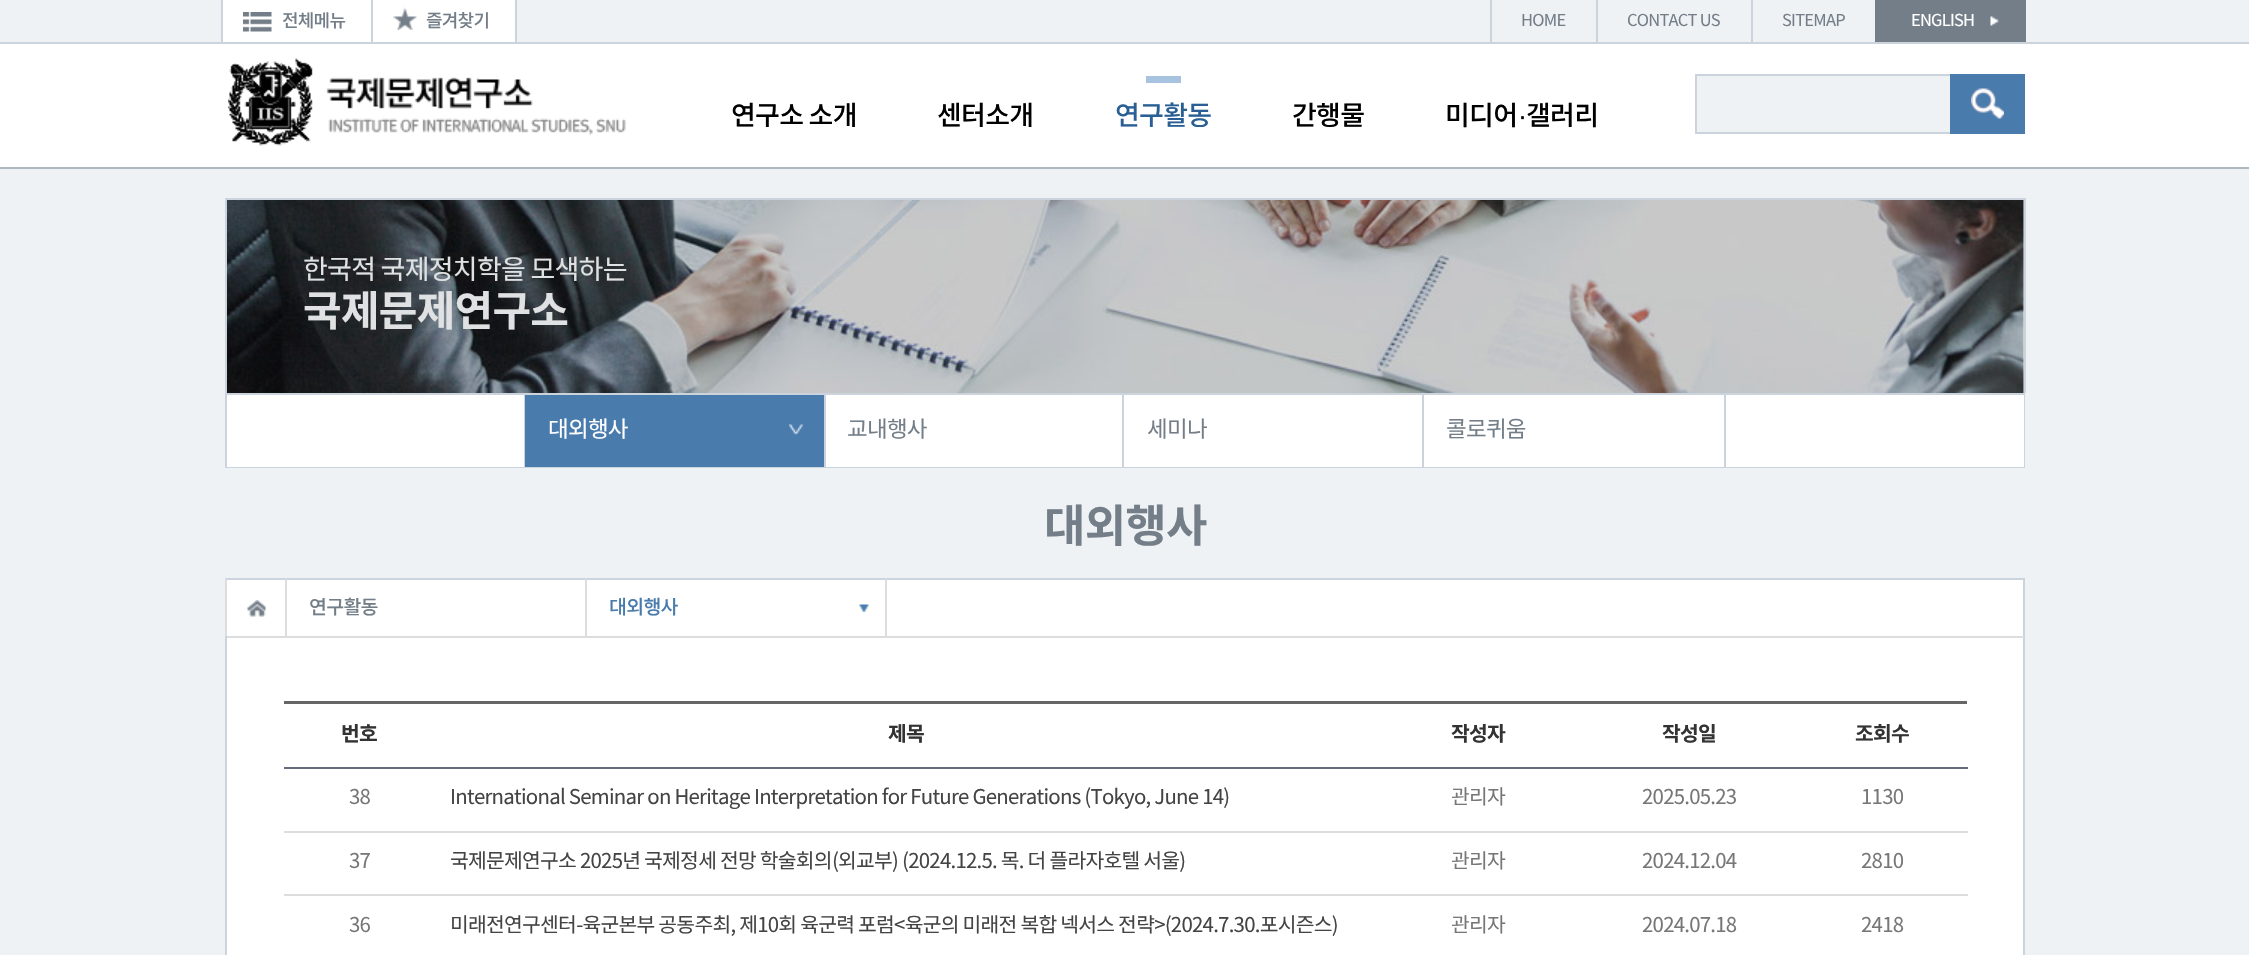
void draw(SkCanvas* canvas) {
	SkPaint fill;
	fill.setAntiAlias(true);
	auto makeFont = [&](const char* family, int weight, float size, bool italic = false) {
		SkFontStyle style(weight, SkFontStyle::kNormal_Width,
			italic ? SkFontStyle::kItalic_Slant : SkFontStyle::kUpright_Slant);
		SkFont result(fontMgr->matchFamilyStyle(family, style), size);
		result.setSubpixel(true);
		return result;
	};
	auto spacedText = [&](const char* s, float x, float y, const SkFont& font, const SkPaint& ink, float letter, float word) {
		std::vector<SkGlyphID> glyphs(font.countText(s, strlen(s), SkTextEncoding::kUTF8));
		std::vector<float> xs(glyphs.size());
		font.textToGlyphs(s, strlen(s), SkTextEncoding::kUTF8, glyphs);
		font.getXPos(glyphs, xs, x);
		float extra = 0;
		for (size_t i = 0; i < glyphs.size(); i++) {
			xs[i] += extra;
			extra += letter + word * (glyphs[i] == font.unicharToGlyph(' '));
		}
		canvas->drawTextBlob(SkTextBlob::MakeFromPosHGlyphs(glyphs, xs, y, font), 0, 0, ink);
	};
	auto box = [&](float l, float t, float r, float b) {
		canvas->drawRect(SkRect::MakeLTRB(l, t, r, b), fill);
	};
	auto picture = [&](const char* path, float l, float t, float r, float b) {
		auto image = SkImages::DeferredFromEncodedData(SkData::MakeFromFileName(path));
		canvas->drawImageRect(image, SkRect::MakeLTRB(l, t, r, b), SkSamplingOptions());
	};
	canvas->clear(0xFFEFF2F5);
	fill.setColor(0xFFCBD4DD);
	box(0, 42, 2249, 44);
	fill.setColor(0xFFFFFFFF);
	box(223, 0, 371, 42);
	fill.setColor(0xFFCBD4DD);
	box(221, 0, 223, 42);
	picture("image0.png", 243, 12, 272, 32);
	fill.setColor(0xFFFFFFFF);
	box(373, 0, 515, 42);
	fill.setColor(0xFFCBD4DD);
	box(515, 0, 517, 42);
	box(371, 0, 373, 42);
	picture("image1.png", 393, 7, 417, 30);
	box(1490, 0, 1492, 42);
	box(1596, 0, 1598, 42);
	box(1751, 0, 1753, 42);
	fill.setColor(0xFF747E88);
	box(1875, 0, 2026, 42);
	picture("image2.png", 1990, 16, 1999, 26);
	fill.setColor(0xFFFFFFFF);
	box(0, 44, 2249, 167);
	fill.setColor(0xFFADB7C0);
	box(0, 167, 2249, 169);
	picture("image3.png", 228, 58, 626, 146);
	fill.setColor(0xFFA7C3E0);
	box(1146, 76, 1181, 83);
	fill.setColor(0xFFEFF2F5);
	box(1697, 76, 1950, 132);
	fill.setColor(0xFFCBD4DD);
	box(1695, 74, 1950, 76);
	box(1695, 132, 1950, 134);
	box(1695, 74, 1697, 134);
	fill.setColor(0xFF497BAD);
	box(1950, 74, 2025, 134);
	picture("image4.png", 1971, 88, 2004, 119);
	picture("image5.png", 227, 200, 2024, 393);
	fill.setColor(0xFFCBD4DD);
	box(225, 198, 2025, 200);
	box(2024, 198, 2026, 393);
	box(225, 198, 227, 393);
	fill.setStyle(SkPaint::kStroke_Style);
	fill.setStrokeWidth(2);
	canvas->drawRect(SkRect::MakeLTRB(226, 394, 2024, 467), fill);
	fill.setStyle(SkPaint::kFill_Style);
	fill.setColor(0xFFFFFFFF);
	box(227, 395, 2024, 467);
	fill.setColor(0xFFCBD4DD);
	box(524, 395, 525, 467);
	fill.setColor(0xFF497BAD);
	box(525, 395, 824, 467);
	picture("image6.png", 789, 424, 803, 435);
	fill.setColor(0xFFCBD4DD);
	box(824, 395, 826, 467);
	box(1122, 395, 1124, 467);
	box(1724, 395, 1726, 467);
	box(1422, 395, 1424, 467);
	fill.setColor(0xFFFFFFFF);
	canvas->drawRect(SkRect::MakeLTRB(226, 579, 2024, 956), fill);
	fill.setStyle(SkPaint::kStroke_Style);
	fill.setColor(0xFFCBD4DD);
	canvas->drawRect(SkRect::MakeLTRB(226, 579, 2024, 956), fill);
	fill.setStyle(SkPaint::kFill_Style);
	fill.setColor(0xFFDDDDDD);
	box(227, 636, 2024, 638);
	picture("image7.png", 247, 600, 266, 617);
	box(285, 579, 287, 636);
	box(225, 579, 227, 636);
	box(585, 579, 587, 636);
	picture("image8.png", 859, 604, 869, 612);
	box(885, 579, 887, 636);
	fill.setColor(0xFF666666);
	box(284, 701, 1967, 704);
	fill.setColor(0xFF646C7C);
	box(284, 767, 1968, 769);
	fill.setColor(0xFFDDDDDD);
	box(284, 831, 1968, 833);
	box(284, 894, 1968, 896);
	auto font1 = makeFont("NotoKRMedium", 500, 18);
	fill.setColor(0xFF747E88);
	spacedText("전체메뉴", 282, 27, font1, fill, -0.75f, 0);
	spacedText("즐겨찾기", 426, 27, font1, fill, -0.75f, 0);
	auto font2 = makeFont("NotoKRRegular", 400, 16.5f);
	spacedText("HOME", 1521, 26, font2, fill, -0.75f, 0);
	spacedText("CONTACT US", 1627, 26, font2, fill, -0.75f, 0);
	spacedText("SITEMAP", 1782, 26, font2, fill, -0.75f, 0);
	fill.setColor(0xFFFFFFFF);
	spacedText("ENGLISH", 1911, 26, font2, fill, -0.75f, 0);
	auto font3 = makeFont("NotoKRMedium", 500, 27);
	fill.setColor(0xFF000000);
	spacedText("연구소 소개", 731, 125, font3, fill, -0.75f, 0);
	spacedText("센터소개", 937, 125, font3, fill, -0.75f, 0);
	fill.setColor(0xFF295F94);
	spacedText("연구활동", 1115, 125, font3, fill, -0.75f, 0);
	fill.setColor(0xFF000000);
	spacedText("간행물", 1292, 125, font3, fill, -0.75f, 0);
	spacedText("미디어", 1445, 125, font3, fill, -0.75f, 0);
	auto font4 = makeFont("Liberation Sans", 400, 27);
	spacedText("·", 1518, 125, font4, fill, -0.75f, 0);
	spacedText("갤러리", 1526, 125, font3, fill, -0.75f, 0);
	auto font5 = makeFont("NotoKRRegular", 400, 27);
	fill.setColor(0xFFE0E1E2);
	spacedText("한국적 국제정치학을 모색하는", 303, 279, font5, fill, -0.75f, 0);
	auto font6 = makeFont("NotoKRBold", 700, 42);
	spacedText("국제문제연구소", 303, 326, font6, fill, -0.75f, 0);
	auto font7 = makeFont("NotoKRRegular", 400, 22.5f);
	fill.setColor(0xFFFFFFFF);
	spacedText("대외행사", 548, 437, font7, fill, -0.75f, 0);
	fill.setColor(0xFF747E88);
	spacedText("교내행사", 847, 437, font7, fill, -0.75f, 0);
	spacedText("세미나", 1147, 437, font7, fill, -0.75f, 0);
	spacedText("콜로퀴움", 1446, 437, font7, fill, -0.75f, 0);
	auto font8 = makeFont("NotoKRBold", 700, 45);
	spacedText("대외행사", 1044, 542, font8, fill, -0.75f, 0);
	auto font9 = makeFont("NotoKRMedium", 500, 19.5f);
	spacedText("연구활동", 309, 614, font9, fill, -0.75f, 0);
	fill.setColor(0xFF497BAD);
	spacedText("대외행사", 609, 614, font9, fill, -0.75f, 0);
	auto font10 = makeFont("NotoKRBold", 700, 20.4f);
	fill.setColor(0xFF333333);
	spacedText("번호", 341, 741, font10, fill, -0.75f, 0);
	spacedText("제목", 888, 741, font10, fill, -0.75f, 0);
	spacedText("작성자", 1451, 741, font10, fill, -0.75f, 0);
	spacedText("작성일", 1662, 741, font10, fill, -0.75f, 0);
	spacedText("조회수", 1855, 741, font10, fill, -0.75f, 0);
	auto font11 = makeFont("NotoKRRegular", 400, 20.4f);
	fill.setColor(0xFF777777);
	spacedText("38", 349, 804, font11, fill, -0.75f, 0);
	fill.setColor(0xFF444444);
	spacedText("International Seminar on Heritage Interpretation for Future Generations (Tokyo, June 14)", 450, 804, font11, fill, -0.75f, 0);
	fill.setColor(0xFF777777);
	spacedText("관리자", 1451, 804, font11, fill, -0.75f, 0);
	spacedText("2025.05.23", 1642, 804, font11, fill, -0.75f, 0);
	spacedText("1130", 1861, 804, font11, fill, -0.75f, 0);
	spacedText("37", 349, 868, font11, fill, -0.75f, 0);
	fill.setColor(0xFF444444);
	spacedText("국제문제연구소 2025년 국제정세 전망 학술회의(외교부) (2024.12.5. 목. 더 플라자호텔 서울)", 450, 868, font11, fill, -0.75f, 0);
	fill.setColor(0xFF777777);
	spacedText("관리자", 1451, 868, font11, fill, -0.75f, 0);
	spacedText("2024.12.04", 1642, 868, font11, fill, -0.75f, 0);
	spacedText("2810", 1861, 868, font11, fill, -0.75f, 0);
	spacedText("36", 349, 932, font11, fill, -0.75f, 0);
	fill.setColor(0xFF444444);
	spacedText("미래전연구센터-육군본부 공동주최, 제10회 육군력 포럼<육군의 미래전 복합 넥서스 전략>(2024.7.30.포시즌스)", 450, 932, font11, fill, -0.75f, 0);
	fill.setColor(0xFF777777);
	spacedText("관리자", 1451, 932, font11, fill, -0.75f, 0);
	spacedText("2024.07.18", 1642, 932, font11, fill, -0.75f, 0);
	spacedText("2418", 1861, 932, font11, fill, -0.75f, 0);
}
